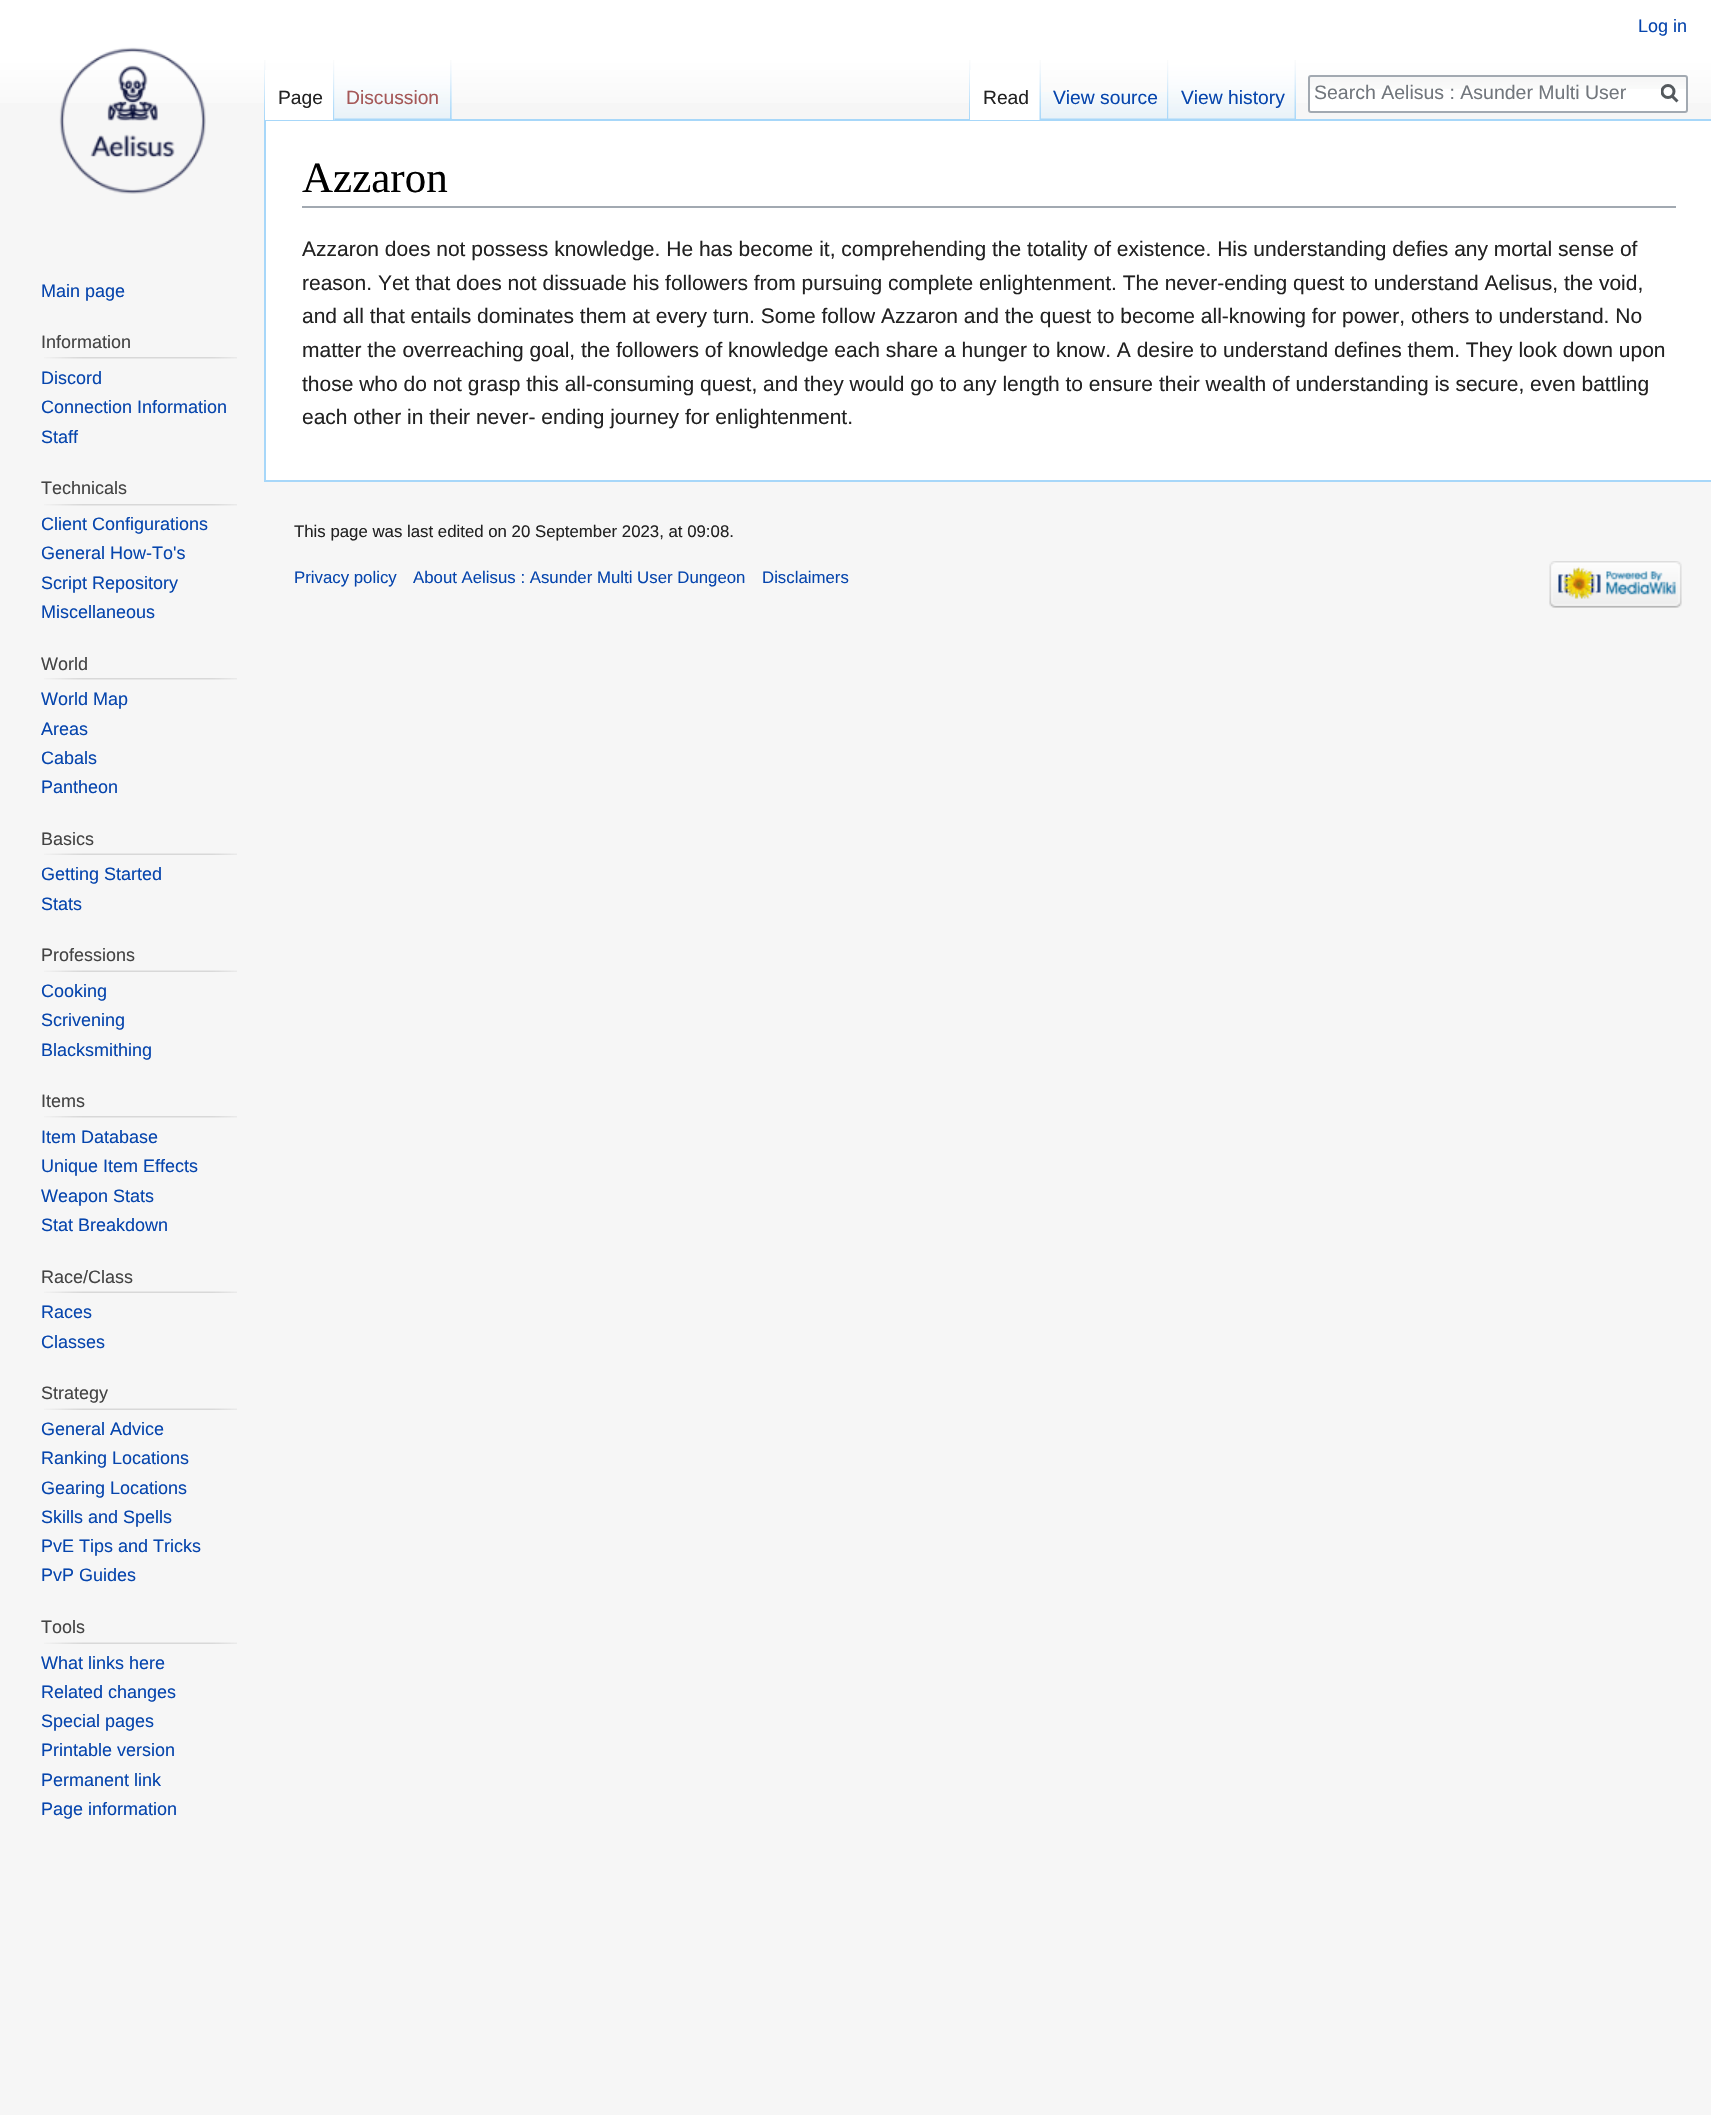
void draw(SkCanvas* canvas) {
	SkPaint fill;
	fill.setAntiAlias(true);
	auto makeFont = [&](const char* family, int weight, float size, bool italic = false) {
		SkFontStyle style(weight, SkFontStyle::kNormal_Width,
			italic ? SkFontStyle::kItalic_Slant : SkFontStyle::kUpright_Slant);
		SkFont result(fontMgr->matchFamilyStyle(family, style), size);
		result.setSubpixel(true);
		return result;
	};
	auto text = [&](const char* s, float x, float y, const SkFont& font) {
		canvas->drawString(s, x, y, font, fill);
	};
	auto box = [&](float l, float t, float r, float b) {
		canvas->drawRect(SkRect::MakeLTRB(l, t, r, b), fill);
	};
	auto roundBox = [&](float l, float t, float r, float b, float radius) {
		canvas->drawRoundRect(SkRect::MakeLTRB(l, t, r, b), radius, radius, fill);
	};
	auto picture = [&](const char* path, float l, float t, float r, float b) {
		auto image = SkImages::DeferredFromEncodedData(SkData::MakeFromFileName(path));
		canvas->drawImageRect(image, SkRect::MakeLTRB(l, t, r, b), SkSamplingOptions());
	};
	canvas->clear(0xFFF6F6F6);
	{
		const SkColor colors[] = {0xFFFFFFFF, 0xFFF6F6F6};
		const float stops[] = {0.5f, 1};
		const SkPoint ends[] = {{856, 0}, {856, 120}};
		fill.setShader(SkGradientShader::MakeLinear(ends, colors, stops, 2, SkTileMode::kClamp));
		fill.setAlpha(255);
	}
	box(0, 0, 1711, 103);
	picture("image0.png", 264, 60, 266, 119);
	picture("image1.png", 451, 60, 452, 119);
	fill.setShader(nullptr);
	fill.setColor(0xFFA7D7F9);
	box(264, 119, 1711, 121);
	box(264, 480, 1711, 482);
	box(264, 119, 266, 482);
	fill.setColor(0xFFFFFFFF);
	box(265, 70, 335, 120);
	picture("image2.png", 333, 60, 335, 120);
	picture("image3.png", 334, 60, 452, 120);
	picture("image4.png", 450, 60, 452, 119);
	picture("image0.png", 969, 60, 971, 119);
	box(970, 70, 1040, 120);
	picture("image5.png", 1039, 60, 1041, 120);
	picture("image6.png", 1041, 92, 1169, 119);
	picture("image7.png", 1167, 60, 1169, 119);
	picture("image8.png", 1168, 60, 1295, 119);
	picture("image9.png", 1294, 60, 1296, 119);
	roundBox(1308, 75, 1688, 113, 3);
	picture("image10.png", 1308, 76, 1686, 89);
	fill.setStyle(SkPaint::kStroke_Style);
	fill.setStrokeWidth(2);
	fill.setColor(0xFFA2A9B1);
	canvas->drawRoundRect(SkRect::MakeLTRB(1309, 76, 1687, 112), 2, 2, fill);
	fill.setStrokeWidth(3);
	fill.setColor(0xFF54595D);
	canvas->drawPath(SkPathBuilder().moveTo(1677.5f, 101.5f).lineTo(1671.5f, 95.5f).detach(), fill);
	canvas->save();
	canvas->clipRect(SkRect::MakeLTRB(1661, 84, 1679, 104));
	canvas->drawCircle(1668, 91.5f, 6, fill);
	canvas->restore();
	picture("image11.png", 59, 47, 206, 194);
	picture("image12.png", 44, 357, 237, 359);
	picture("image12.png", 44, 504, 237, 506);
	picture("image12.png", 44, 678, 237, 680);
	picture("image13.png", 44, 853, 237, 855);
	picture("image13.png", 44, 970, 237, 972);
	picture("image12.png", 44, 1116, 237, 1118);
	picture("image13.png", 44, 1291, 237, 1293);
	picture("image13.png", 44, 1408, 237, 1410);
	picture("image13.png", 44, 1642, 237, 1644);
	fill.setStyle(SkPaint::kFill_Style);
	fill.setColor(0xFFFFFFFF);
	box(266, 121, 1711, 480);
	fill.setColor(0xFFA2A9B1);
	box(302, 206, 1676, 208);
	picture("image14.png", 1549, 561, 1682, 608);
	auto font1 = makeFont("Liberation Sans", 400, 18);
	fill.setColor(0xFF0645AD);
	text("Log in", 1638, 32, font1);
	auto font2 = makeFont("Liberation Sans", 400, 19.25f);
	fill.setColor(0xFF222222);
	text("Page", 278, 104, font2);
	fill.setColor(0xFFA55858);
	text("Discussion", 346, 104, font2);
	fill.setColor(0xFF222222);
	text("Read", 983, 104, font2);
	fill.setColor(0xFF0645AD);
	text("View source", 1053, 104, font2);
	text("View history", 1181, 104, font2);
	auto font3 = makeFont("Liberation Sans", 400, 19.5f);
	fill.setColor(0xFF72777D);
	text("Search Aelisus : Asunder Multi User", 1314, 99, font3);
	fill.setColor(0xFF0645AD);
	text("Main page", 41, 297, font1);
	fill.setColor(0xFF444444);
	text("Information", 41, 348, font1);
	fill.setColor(0xFF0645AD);
	text("Discord", 41, 384, font1);
	text("Connection Information", 41, 413, font1);
	text("Staff", 41, 443, font1);
	fill.setColor(0xFF444444);
	text("Technicals", 41, 494, font1);
	fill.setColor(0xFF0645AD);
	text("Client Configurations", 41, 530, font1);
	text("General How-To's", 41, 559, font1);
	text("Script Repository", 41, 589, font1);
	text("Miscellaneous", 41, 618, font1);
	fill.setColor(0xFF444444);
	text("World", 41, 670, font1);
	fill.setColor(0xFF0645AD);
	text("World Map", 41, 705, font1);
	text("Areas", 41, 735, font1);
	text("Cabals", 41, 764, font1);
	text("Pantheon", 41, 793, font1);
	fill.setColor(0xFF444444);
	text("Basics", 41, 845, font1);
	fill.setColor(0xFF0645AD);
	text("Getting Started", 41, 880, font1);
	text("Stats", 41, 910, font1);
	fill.setColor(0xFF444444);
	text("Professions", 41, 961, font1);
	fill.setColor(0xFF0645AD);
	text("Cooking", 41, 997, font1);
	text("Scrivening", 41, 1026, font1);
	text("Blacksmithing", 41, 1056, font1);
	fill.setColor(0xFF444444);
	text("Items", 41, 1107, font1);
	fill.setColor(0xFF0645AD);
	text("Item Database", 41, 1143, font1);
	text("Unique Item Effects", 41, 1172, font1);
	text("Weapon Stats", 41, 1202, font1);
	text("Stat Breakdown", 41, 1231, font1);
	fill.setColor(0xFF444444);
	text("Race/Class", 41, 1283, font1);
	fill.setColor(0xFF0645AD);
	text("Races", 41, 1318, font1);
	text("Classes", 41, 1348, font1);
	fill.setColor(0xFF444444);
	text("Strategy", 41, 1399, font1);
	fill.setColor(0xFF0645AD);
	text("General Advice", 41, 1435, font1);
	text("Ranking Locations", 41, 1464, font1);
	text("Gearing Locations", 41, 1494, font1);
	text("Skills and Spells", 41, 1523, font1);
	text("PvE Tips and Tricks", 41, 1552, font1);
	text("PvP Guides", 41, 1581, font1);
	fill.setColor(0xFF444444);
	text("Tools", 41, 1633, font1);
	fill.setColor(0xFF0645AD);
	text("What links here", 41, 1669, font1);
	text("Related changes", 41, 1698, font1);
	text("Special pages", 41, 1727, font1);
	text("Printable version", 41, 1756, font1);
	text("Permanent link", 41, 1786, font1);
	text("Page information", 41, 1815, font1);
	auto font4 = makeFont("Liberation Serif", 400, 43);
	fill.setColor(0xFF000000);
	text("Azzaron", 302, 192, font4);
	auto font5 = makeFont("Liberation Sans", 400, 21);
	fill.setColor(0xFF222222);
	text("Azzaron does not possess knowledge. He has become it, comprehending the totality of existence. His understanding defies any mortal sense of", 302, 256, font5);
	text("reason. Yet that does not dissuade his followers from pursuing complete enlightenment. The never-ending quest to understand Aelisus, the void,", 302, 290, font5);
	text("and all that entails dominates them at every turn. Some follow Azzaron and the quest to become all-knowing for power, others to understand. No", 302, 323, font5);
	text("matter the overreaching goal, the followers of knowledge each share a hunger to know. A desire to understand defines them. They look down upon", 302, 357, font5);
	text("those who do not grasp this all-consuming quest, and they would go to any length to ensure their wealth of understanding is secure, even battling", 302, 391, font5);
	text("each other in their never- ending journey for enlightenment.", 302, 424, font5);
	auto font6 = makeFont("Liberation Sans", 400, 16.8f);
	text("This page was last edited on 20 September 2023, at 09:08.", 294, 537, font6);
	fill.setColor(0xFF0645AD);
	text("Privacy policy", 294, 583, font6);
	text("About Aelisus : Asunder Multi User Dungeon", 413, 583, font6);
	text("Disclaimers", 762, 583, font6);
}
